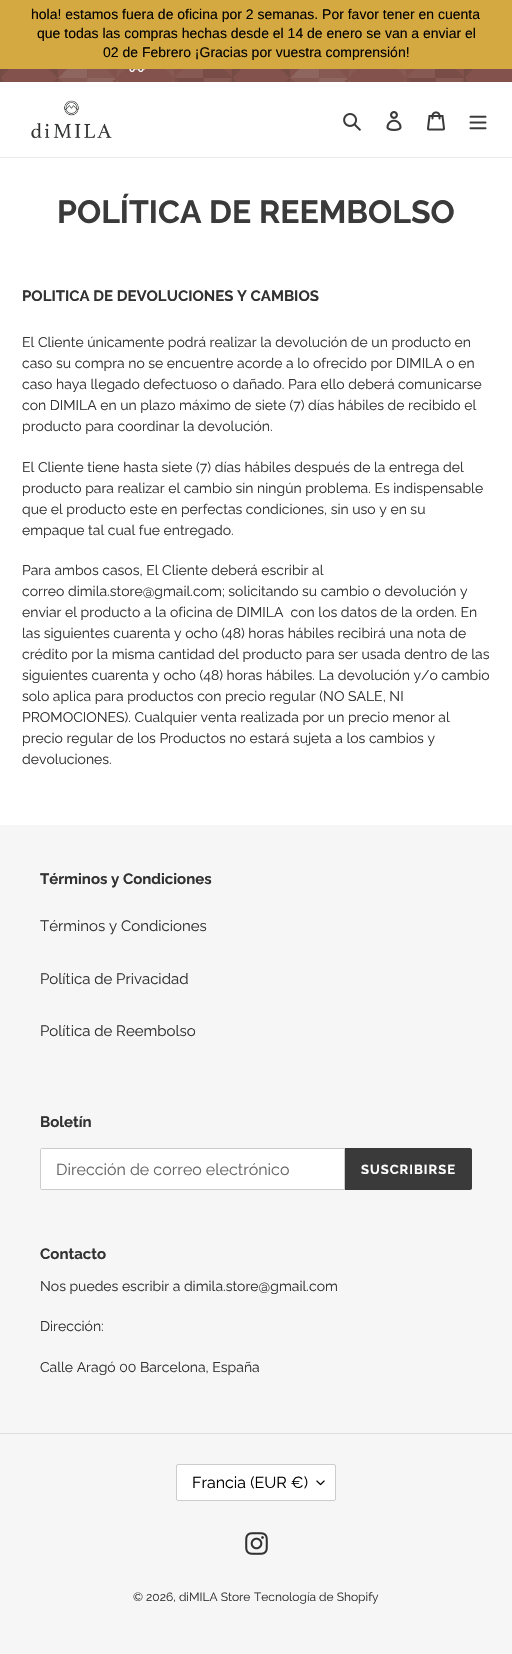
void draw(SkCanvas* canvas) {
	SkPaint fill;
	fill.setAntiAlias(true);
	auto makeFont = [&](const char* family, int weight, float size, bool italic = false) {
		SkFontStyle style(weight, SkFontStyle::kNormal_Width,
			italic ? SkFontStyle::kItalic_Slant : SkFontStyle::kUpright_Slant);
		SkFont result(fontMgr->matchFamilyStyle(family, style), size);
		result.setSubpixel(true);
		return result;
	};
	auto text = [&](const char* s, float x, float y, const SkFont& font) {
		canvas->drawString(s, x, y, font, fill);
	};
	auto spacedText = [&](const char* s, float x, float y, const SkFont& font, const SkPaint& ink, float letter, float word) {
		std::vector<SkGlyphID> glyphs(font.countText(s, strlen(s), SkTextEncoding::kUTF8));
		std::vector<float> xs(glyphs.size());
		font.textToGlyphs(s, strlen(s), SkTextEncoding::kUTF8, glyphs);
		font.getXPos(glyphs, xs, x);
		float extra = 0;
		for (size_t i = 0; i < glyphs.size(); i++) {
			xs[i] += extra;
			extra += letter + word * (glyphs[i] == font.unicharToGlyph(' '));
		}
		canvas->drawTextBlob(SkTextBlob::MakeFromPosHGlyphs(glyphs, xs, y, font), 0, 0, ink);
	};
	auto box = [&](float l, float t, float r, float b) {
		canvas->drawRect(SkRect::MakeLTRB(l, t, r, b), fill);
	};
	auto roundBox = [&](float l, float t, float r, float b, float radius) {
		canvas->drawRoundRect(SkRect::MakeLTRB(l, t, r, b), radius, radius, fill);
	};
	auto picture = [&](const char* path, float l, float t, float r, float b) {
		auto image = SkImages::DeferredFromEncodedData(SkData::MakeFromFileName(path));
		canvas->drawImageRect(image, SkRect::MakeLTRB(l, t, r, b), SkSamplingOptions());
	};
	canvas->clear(0xFFFFFFFF);
	fill.setColor(0xFFD5A941);
	box(0, 0, 512, 69);
	picture("image0.png", 0, 69, 512, 82);
	picture("image1.png", 129, 69, 146, 73);
	fill.setColor(0xFFEBEBEB);
	box(0, 157, 512, 158);
	picture("image2.png", 31, 100, 112, 139);
	picture("image3.png", 343, 113, 361, 131);
	picture("image4.png", 386, 111, 402, 131);
	picture("image5.png", 427, 111, 445, 131);
	picture("image6.png", 469, 115, 487, 130);
	fill.setColor(0xFFF6F6F6);
	box(0, 825, 512, 1654);
	fill.setColor(0xFFFFFFFF);
	canvas->drawPath(SkPathBuilder().moveTo(42, 1148.5f).lineTo(344.5f, 1148.5f).lineTo(344.5f, 1189.5f).lineTo(42, 1189.5f).cubicTo(41, 1189.5f, 40.5f, 1189, 40.5f, 1188).lineTo(40.5f, 1150).cubicTo(40.5f, 1149, 41, 1148.5f, 42, 1148.5f).close().detach(), fill);
	fill.setStyle(SkPaint::kStroke_Style);
	fill.setStrokeWidth(1);
	fill.setColor(0xFFCCCCCC);
	canvas->drawPath(SkPathBuilder().moveTo(42, 1148.5f).lineTo(344.5f, 1148.5f).lineTo(344.5f, 1189.5f).lineTo(42, 1189.5f).cubicTo(41, 1189.5f, 40.5f, 1189, 40.5f, 1188).lineTo(40.5f, 1150).cubicTo(40.5f, 1149, 41, 1148.5f, 42, 1148.5f).close().detach(), fill);
	fill.setStyle(SkPaint::kFill_Style);
	fill.setColor(0xFF3A3A3A);
	canvas->drawPath(SkPathBuilder().moveTo(345, 1148).lineTo(470, 1148).cubicTo(471, 1148, 472, 1149, 472, 1150).lineTo(472, 1188).cubicTo(472, 1189, 471, 1190, 470, 1190).lineTo(345, 1190).close().detach(), fill);
	fill.setColor(0xFFDDDDDD);
	box(0, 1433, 512, 1434);
	fill.setColor(0xFFFFFFFF);
	roundBox(176, 1464, 336, 1501, 2);
	picture("image7.png", 316, 1480, 325, 1486);
	fill.setStyle(SkPaint::kStroke_Style);
	fill.setColor(0xFFCCCCCC);
	canvas->drawRoundRect(SkRect::MakeLTRB(176.5f, 1464.5f, 335.5f, 1500.5f), 1.5f, 1.5f, fill);
	picture("image8.png", 245, 1532, 268, 1555);
	auto font1 = makeFont("Liberation Sans", 400, 14);
	fill.setStyle(SkPaint::kFill_Style);
	fill.setColor(0xFF000000);
	text("hola! estamos fuera de oficina por 2 semanas. Por favor tener en cuenta", 31, 19, font1);
	text("que todas las compras hechas desde el 14 de enero se van a enviar el", 37, 38, font1);
	text("02 de Febrero ¡Gracias por vuestra comprensión!", 103, 57, font1);
	auto font2 = makeFont("Raleway", 700, 32);
	fill.setColor(0xFF3A3A3A);
	text("POLÍTICA DE REEMBOLSO", 57, 223, font2);
	auto font3 = makeFont("Raleway", 700, 15);
	fill.setColor(0xFF333232);
	text("POLITICA DE DEVOLUCIONES Y CAMBIOS", 22, 301, font3);
	auto font4 = makeFont("Raleway", 400, 14);
	text("El Cliente únicamente podrá realizar la devolución de un producto en", 22, 347, font4);
	text("caso su compra no se encuentre acorde a lo ofrecido por DIMILA o en", 22, 368, font4);
	text("caso haya llegado defectuoso o dañado. Para ello deberá comunicarse", 22, 389, font4);
	text("con DIMILA en un plazo máximo de siete (7) días hábiles de recibido el", 22, 410, font4);
	text("producto para coordinar la devolución.", 22, 431, font4);
	text("El Cliente tiene hasta siete (7) días hábiles después de la entrega del", 22, 472, font4);
	text("producto para realizar el cambio sin ningún problema. Es indispensable", 22, 493, font4);
	text("que el producto este en perfectas condiciones, sin uso y en su", 22, 514, font4);
	text("empaque tal cual fue entregado.", 22, 535, font4);
	text("Para ambos casos, El Cliente deberá escribir al", 22, 575, font4);
	text("correo dimila.store@gmail.com; solicitando su cambio o devolución y", 22, 596, font4);
	text("enviar el producto a la oficina de DIMILA  con los datos de la orden. En", 22, 617, font4);
	text("las siguientes cuarenta y ocho (48) horas hábiles recibirá una nota de", 22, 638, font4);
	text("crédito por la misma cantidad del producto para ser usada dentro de las", 22, 659, font4);
	text("siguientes cuarenta y ocho (48) horas hábiles. La devolución y/o cambio", 22, 680, font4);
	text("solo aplica para productos con precio regular (NO SALE, NI", 22, 701, font4);
	text("PROMOCIONES). Cualquier venta realizada por un precio menor al", 22, 722, font4);
	text("precio regular de los Productos no estará sujeta a los cambios y", 22, 743, font4);
	text("devoluciones.", 22, 764, font4);
	text("Términos y Condiciones", 40, 884, font3);
	auto font5 = makeFont("Raleway", 400, 15);
	text("Términos y Condiciones", 40, 931, font5);
	text("Política de Privacidad", 40, 984, font5);
	text("Política de Reembolso", 40, 1036, font5);
	text("Boletín", 40, 1127, font3);
	auto font6 = makeFont("Raleway", 400, 16);
	fill.setColor(0xFF666666);
	text("Dirección de correo electrónico", 56, 1175, font6);
	auto font7 = makeFont("Raleway", 700, 13);
	fill.setColor(0xFFFFFFFF);
	spacedText("SUSCRIBIRSE", 361, 1174, font7, fill, 1, 0);
	fill.setColor(0xFF333232);
	text("Contacto", 40, 1259, font3);
	text("Nos puedes escribir a dimila.store@gmail.com", 40, 1291, font4);
	text("Dirección:", 40, 1331, font4);
	text("Calle Aragó 00 Barcelona, España", 40, 1372, font4);
	fill.setColor(0xFF000000);
	text("Francia (EUR €)", 192, 1488, font6);
	auto font8 = makeFont("Raleway", 400, 12);
	fill.setColor(0xFF333232);
	text("© 2026, diMILA Store", 133, 1601, font8);
	text("Tecnología de Shopify", 254, 1601, font8);
}
